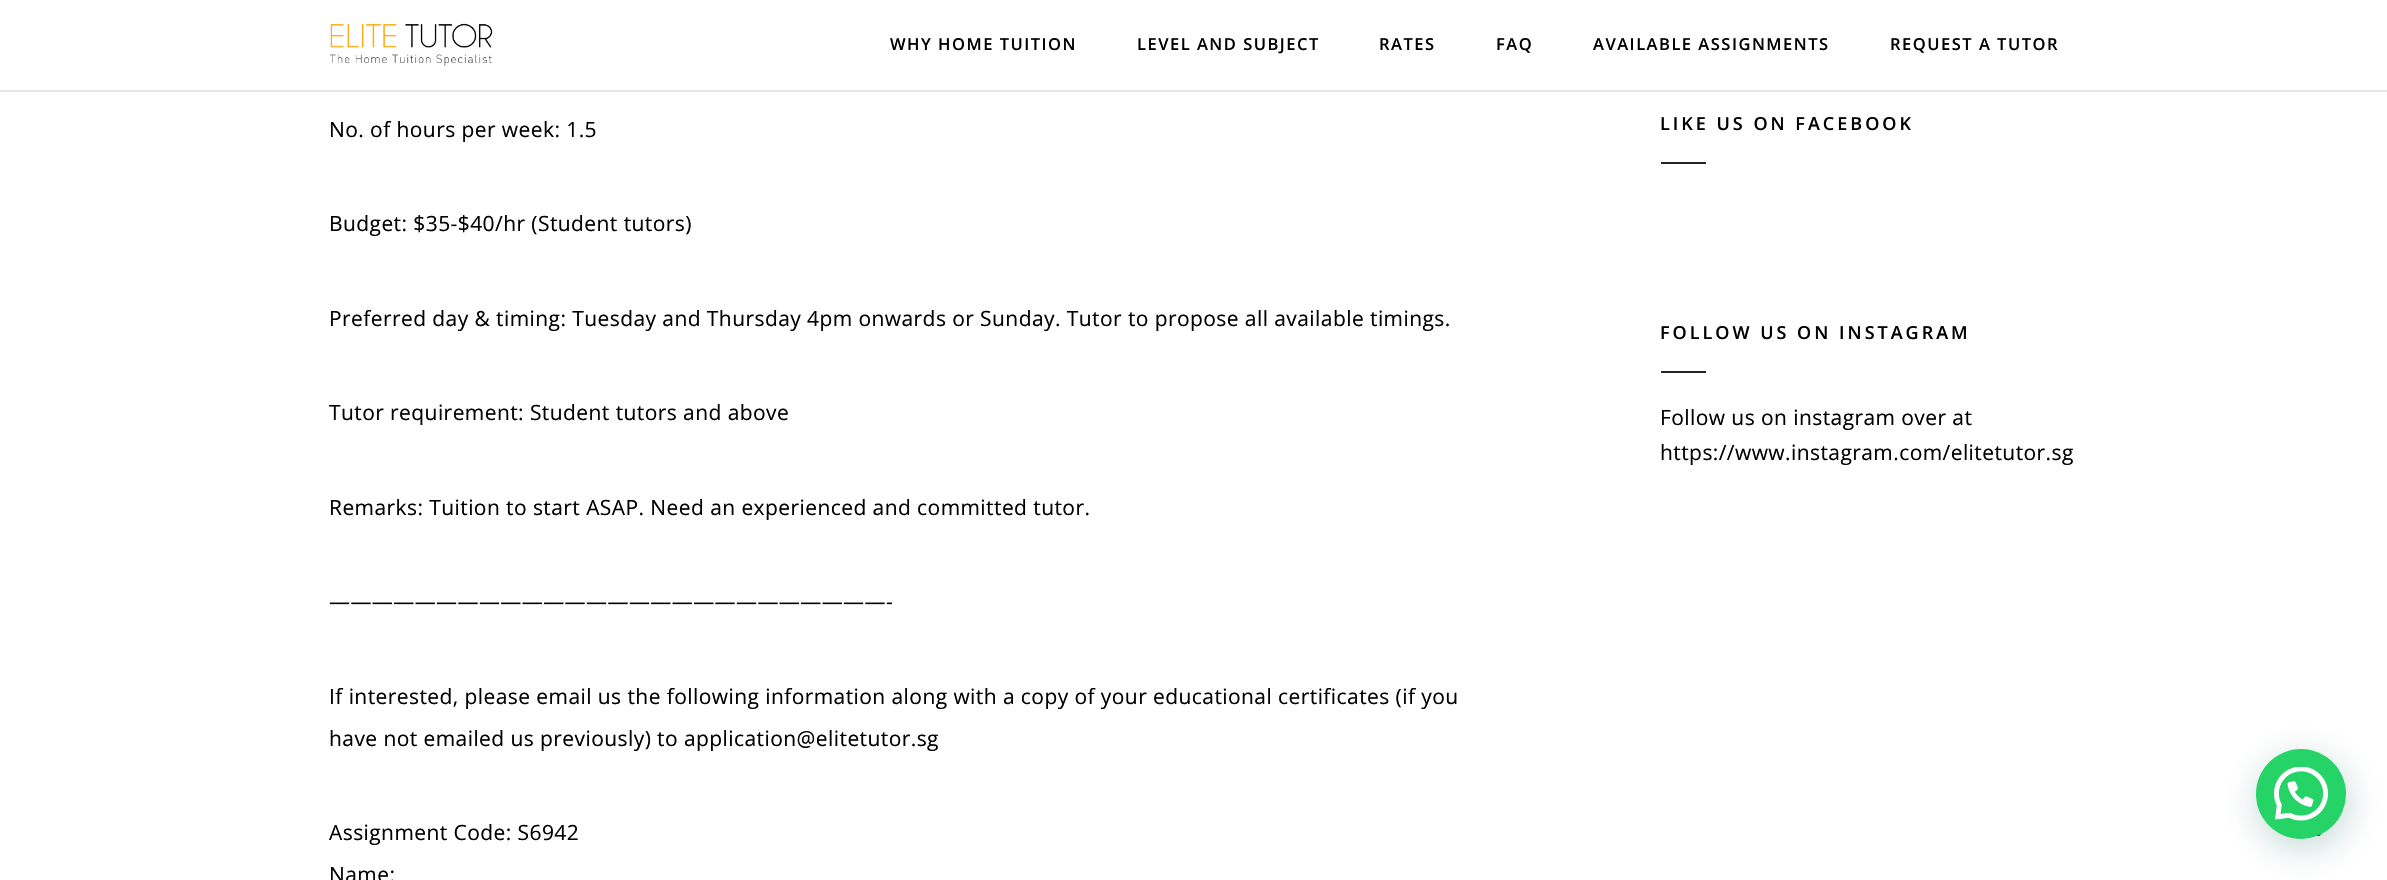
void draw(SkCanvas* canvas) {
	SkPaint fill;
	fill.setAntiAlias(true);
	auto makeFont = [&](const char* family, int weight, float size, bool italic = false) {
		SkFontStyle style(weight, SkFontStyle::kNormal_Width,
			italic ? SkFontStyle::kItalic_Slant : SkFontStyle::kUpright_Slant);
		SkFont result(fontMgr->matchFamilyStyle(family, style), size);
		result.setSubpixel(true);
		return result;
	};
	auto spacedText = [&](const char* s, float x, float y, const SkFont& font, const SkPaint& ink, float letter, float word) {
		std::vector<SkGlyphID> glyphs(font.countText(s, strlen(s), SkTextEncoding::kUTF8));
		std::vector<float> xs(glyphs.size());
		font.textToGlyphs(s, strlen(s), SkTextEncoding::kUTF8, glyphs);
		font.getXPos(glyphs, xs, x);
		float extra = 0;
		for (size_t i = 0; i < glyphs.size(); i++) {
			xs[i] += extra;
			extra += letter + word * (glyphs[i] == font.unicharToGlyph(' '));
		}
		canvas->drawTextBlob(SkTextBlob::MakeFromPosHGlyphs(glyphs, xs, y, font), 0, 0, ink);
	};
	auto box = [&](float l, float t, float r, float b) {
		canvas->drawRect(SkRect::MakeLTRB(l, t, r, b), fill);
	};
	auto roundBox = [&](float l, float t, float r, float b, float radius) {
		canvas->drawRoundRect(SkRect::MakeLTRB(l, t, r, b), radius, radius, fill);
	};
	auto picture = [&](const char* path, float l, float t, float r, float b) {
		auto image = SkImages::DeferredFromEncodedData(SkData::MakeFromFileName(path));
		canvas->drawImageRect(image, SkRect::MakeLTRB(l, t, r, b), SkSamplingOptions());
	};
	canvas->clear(0xFFFFFFFF);
	fill.setColor(0xFFE6E6E6);
	box(0, 90, 2387, 92);
	picture("image0.png", 329, 23, 493, 66);
	fill.setColor(0xFF252525);
	box(1661, 162, 1706, 164);
	box(1661, 371, 1706, 373);
	fill.setColor(0xFF000000);
	roundBox(2285, 801, 2321, 836, 3);
	fill.setColor(0x3D075E54);
	fill.setMaskFilter(SkMaskFilter::MakeBlur(kNormal_SkBlurStyle, 18));
	canvas->drawRoundRect(SkRect::MakeLTRB(2258, 758, 2348, 848), 45, 45, fill);
	fill.setMaskFilter(nullptr);
	fill.setColor(0xFF25D366);
	canvas->drawCircle(2301, 794, 45, fill);
	picture("image1.png", 2274, 767, 2328, 821);
	auto font1 = makeFont("Open Sans", 600, 16.5f);
	fill.setColor(0xFF000000);
	spacedText("WHY HOME TUITION", 890, 50, font1, fill, 1.5f, 0);
	spacedText("LEVEL AND SUBJECT", 1137, 50, font1, fill, 1.5f, 0);
	spacedText("RATES", 1379, 50, font1, fill, 1.5f, 0);
	spacedText("FAQ", 1496, 50, font1, fill, 1.5f, 0);
	spacedText("AVAILABLE ASSIGNMENTS", 1593, 50, font1, fill, 1.5f, 0);
	spacedText("REQUEST A TUTOR", 1890, 50, font1, fill, 1.5f, 0);
	auto font2 = makeFont("Open Sans", 400, 21);
	spacedText("No. of hours per week: 1.5", 329, 137, font2, fill, 0.42f, 0);
	spacedText("Budget: $35-$40/hr (Student tutors)", 329, 231, font2, fill, 0.42f, 0);
	spacedText("Preferred day & timing: Tuesday and Thursday 4pm onwards or Sunday. Tutor to propose all available timings.", 329, 326, font2, fill, 0.42f, 0);
	spacedText("Tutor requirement: Student tutors and above", 329, 420, font2, fill, 0.42f, 0);
	spacedText("Remarks: Tuition to start ASAP. Need an experienced and committed tutor.", 329, 515, font2, fill, 0.42f, 0);
	spacedText("——————————————————————————-", 329, 609, font2, fill, 0.42f, 0);
	spacedText("If interested, please email us the following information along with a copy of your educational certificates (if you", 329, 704, font2, fill, 0.42f, 0);
	spacedText("have not emailed us previously) to application@elitetutor.sg", 329, 746, font2, fill, 0.42f, 0);
	spacedText("Assignment Code: S6942", 329, 840, font2, fill, 0.42f, 0);
	spacedText("Name:", 329, 882, font2, fill, 0.42f, 0);
	auto font3 = makeFont("Open Sans", 600, 18);
	spacedText("LIKE US ON FACEBOOK", 1660, 130, font3, fill, 3, 0);
	spacedText("FOLLOW US ON INSTAGRAM", 1660, 339, font3, fill, 3, 0);
	spacedText("Follow us on instagram over at", 1660, 425, font2, fill, 0.42f, 0);
	spacedText("https://www.instagram.com/elitetutor.sg", 1660, 460, font2, fill, 0.42f, 0);
}
